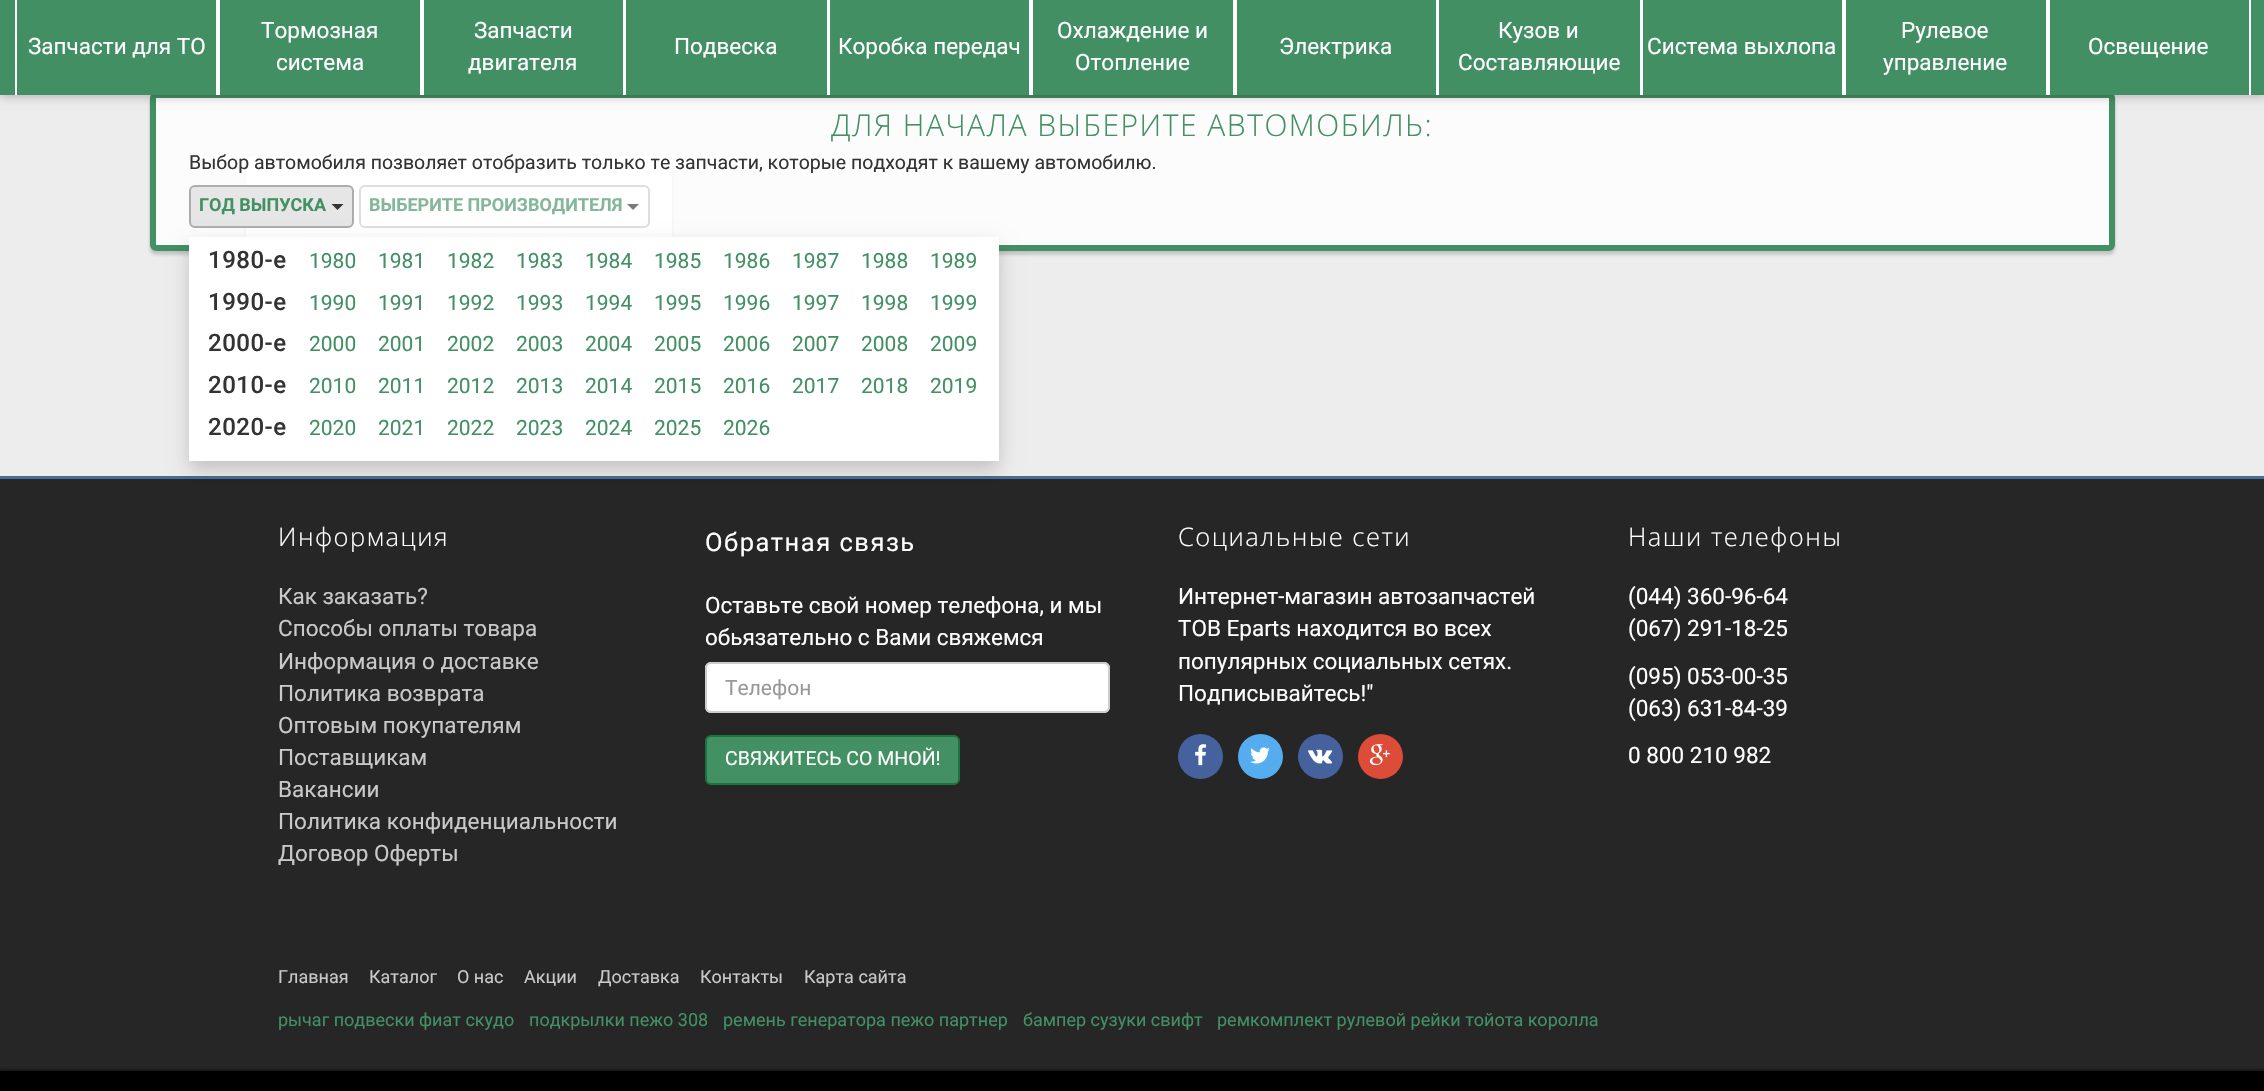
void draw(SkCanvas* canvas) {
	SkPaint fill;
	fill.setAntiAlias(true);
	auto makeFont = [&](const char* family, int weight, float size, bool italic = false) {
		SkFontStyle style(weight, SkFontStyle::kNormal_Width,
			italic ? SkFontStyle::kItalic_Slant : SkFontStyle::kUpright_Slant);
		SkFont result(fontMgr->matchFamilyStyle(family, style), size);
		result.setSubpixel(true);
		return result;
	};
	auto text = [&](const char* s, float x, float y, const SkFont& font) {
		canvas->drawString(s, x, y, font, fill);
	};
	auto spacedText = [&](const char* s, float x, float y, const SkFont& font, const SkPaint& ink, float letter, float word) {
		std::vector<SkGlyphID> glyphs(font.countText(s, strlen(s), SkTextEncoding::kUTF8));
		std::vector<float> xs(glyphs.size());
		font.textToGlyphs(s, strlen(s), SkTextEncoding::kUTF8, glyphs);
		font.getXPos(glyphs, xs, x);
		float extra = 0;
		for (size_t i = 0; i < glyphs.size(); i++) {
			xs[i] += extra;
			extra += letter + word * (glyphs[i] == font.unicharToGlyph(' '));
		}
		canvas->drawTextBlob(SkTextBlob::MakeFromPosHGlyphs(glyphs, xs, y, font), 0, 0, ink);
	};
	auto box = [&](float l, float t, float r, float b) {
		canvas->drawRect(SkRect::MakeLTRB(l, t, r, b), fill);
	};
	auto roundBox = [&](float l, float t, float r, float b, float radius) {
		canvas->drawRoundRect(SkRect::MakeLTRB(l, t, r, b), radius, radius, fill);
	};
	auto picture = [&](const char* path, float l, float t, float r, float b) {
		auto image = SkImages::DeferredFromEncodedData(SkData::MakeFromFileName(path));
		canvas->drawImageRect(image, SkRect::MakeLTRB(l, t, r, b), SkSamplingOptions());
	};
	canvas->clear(0xFFEDEDED);
	fill.setColor(0x26000000);
	fill.setMaskFilter(SkMaskFilter::MakeBlur(kNormal_SkBlurStyle, 1));
	canvas->drawRoundRect(SkRect::MakeLTRB(246, 156, 672, 318), 6, 6, fill);
	fill.setMaskFilter(nullptr);
	fill.setMaskFilter(SkMaskFilter::MakeBlur(kNormal_SkBlurStyle, 1.5f));
	canvas->drawRoundRect(SkRect::MakeLTRB(246, 161, 672, 323), 6, 6, fill);
	fill.setMaskFilter(nullptr);
	fill.setColor(0xFFFFFFFF);
	roundBox(246, 156, 672, 318, 6);
	canvas->save();
	canvas->clipPath(SkPathBuilder(SkPathFillType::kEvenOdd).moveTo(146, 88).lineTo(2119, 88).lineTo(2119, 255).lineTo(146, 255).close().moveTo(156, 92).lineTo(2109, 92).cubicTo(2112.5f, 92, 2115, 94.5f, 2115, 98).lineTo(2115, 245).cubicTo(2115, 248.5f, 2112.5f, 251, 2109, 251).lineTo(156, 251).cubicTo(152.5f, 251, 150, 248.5f, 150, 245).lineTo(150, 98).cubicTo(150, 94.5f, 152.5f, 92, 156, 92).close().detach(), true);
	fill.setColor(0x26000000);
	fill.setMaskFilter(SkMaskFilter::MakeBlur(kNormal_SkBlurStyle, 1));
	canvas->drawRoundRect(SkRect::MakeLTRB(150, 92, 2115, 251), 6, 6, fill);
	fill.setMaskFilter(nullptr);
	canvas->restore();
	canvas->save();
	canvas->clipPath(SkPathBuilder(SkPathFillType::kEvenOdd).moveTo(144, 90).lineTo(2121, 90).lineTo(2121, 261).lineTo(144, 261).close().moveTo(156, 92).lineTo(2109, 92).cubicTo(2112.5f, 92, 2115, 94.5f, 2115, 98).lineTo(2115, 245).cubicTo(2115, 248.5f, 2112.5f, 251, 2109, 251).lineTo(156, 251).cubicTo(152.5f, 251, 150, 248.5f, 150, 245).lineTo(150, 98).cubicTo(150, 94.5f, 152.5f, 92, 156, 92).close().detach(), true);
	fill.setMaskFilter(SkMaskFilter::MakeBlur(kNormal_SkBlurStyle, 1.5f));
	canvas->drawRoundRect(SkRect::MakeLTRB(150, 96, 2115, 255), 6, 6, fill);
	fill.setMaskFilter(nullptr);
	canvas->restore();
	fill.setColor(0xCCFFFFFF);
	canvas->drawRoundRect(SkRect::MakeLTRB(153, 95, 2112, 248), 3, 3, fill);
	fill.setStyle(SkPaint::kStroke_Style);
	fill.setStrokeWidth(6);
	fill.setColor(0xFF429063);
	canvas->drawRoundRect(SkRect::MakeLTRB(153, 95, 2112, 248), 3, 3, fill);
	fill.setStyle(SkPaint::kFill_Style);
	fill.setColor(0x1A000000);
	fill.setMaskFilter(SkMaskFilter::MakeBlur(kNormal_SkBlurStyle, 4));
	canvas->drawRect(SkRect::MakeLTRB(-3, 3, 2262, 98), fill);
	fill.setMaskFilter(nullptr);
	fill.setMaskFilter(SkMaskFilter::MakeBlur(kNormal_SkBlurStyle, 4));
	canvas->drawRect(SkRect::MakeLTRB(3, 3, 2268, 98), fill);
	fill.setMaskFilter(nullptr);
	fill.setColor(0xFF428F63);
	box(0, 0, 2264, 95);
	fill.setColor(0xFFFFFFFF);
	box(216, 0, 220, 95);
	box(15, 0, 17, 95);
	box(420, 0, 424, 95);
	box(623, 0, 626, 95);
	box(827, 0, 830, 95);
	box(1029, 0, 1033, 95);
	box(1233, 0, 1237, 95);
	box(1436, 0, 1439, 95);
	box(1640, 0, 1643, 95);
	box(1842, 0, 1846, 95);
	box(2046, 0, 2050, 95);
	box(2249, 0, 2251, 95);
	fill.setColor(0xFFE6E6E6);
	canvas->drawRoundRect(SkRect::MakeLTRB(190, 186, 353, 227), 5, 5, fill);
	fill.setStyle(SkPaint::kStroke_Style);
	fill.setStrokeWidth(2);
	fill.setColor(0xFFADADAD);
	canvas->drawRoundRect(SkRect::MakeLTRB(190, 186, 353, 227), 5, 5, fill);
	fill.setStyle(SkPaint::kFill_Style);
	fill.setColor(0xFF333333);
	canvas->drawPath(SkPathBuilder().moveTo(331.5f, 204).lineTo(343.5f, 204).lineTo(337.5f, 210).close().detach(), fill);
	fill.setStyle(SkPaint::kStroke_Style);
	fill.setColor(0xA6CCCCCC);
	canvas->drawRoundRect(SkRect::MakeLTRB(360, 186, 649, 227), 5, 5, fill);
	fill.setStyle(SkPaint::kFill_Style);
	fill.setColor(0xFF262626);
	box(0, 479, 2264, 1071);
	fill.setColor(0xFF486D97);
	box(0, 476, 2264, 479);
	fill.setColor(0x2E000000);
	fill.setMaskFilter(SkMaskFilter::MakeBlur(kNormal_SkBlurStyle, 9));
	canvas->drawRect(SkRect::MakeLTRB(189, 246, 999, 470), fill);
	fill.setMaskFilter(nullptr);
	fill.setColor(0xFFFFFFFF);
	box(189, 237, 999, 461);
	fill.setColor(0xFF7A7A7A);
	canvas->drawPath(SkPathBuilder().moveTo(627, 204).lineTo(639, 204).lineTo(633, 210).close().detach(), fill);
	fill.setColor(0xFFFFFFFF);
	roundBox(705, 662, 1110, 713, 6);
	fill.setColor(0xFFECECEC);
	canvas->drawPath(SkPathBuilder().moveTo(711, 664).lineTo(1104, 664).cubicTo(1106, 664, 1108, 667, 1108, 669).lineTo(1108, 709).cubicTo(1109, 708, 1109, 707, 1109, 706).lineTo(1109, 668).cubicTo(1109, 665, 1107, 663, 1104, 663).lineTo(712, 663).cubicTo(710, 663, 708, 664, 707, 666).cubicTo(708, 665, 710, 664, 711, 664).close().detach(), fill);
	fill.setStyle(SkPaint::kStroke_Style);
	fill.setColor(0xFFCCCCCC);
	canvas->drawRoundRect(SkRect::MakeLTRB(706, 663, 1109, 712), 5, 5, fill);
	fill.setStyle(SkPaint::kFill_Style);
	fill.setColor(0xFF429063);
	canvas->drawRoundRect(SkRect::MakeLTRB(706, 736, 959, 784), 5, 5, fill);
	fill.setStyle(SkPaint::kStroke_Style);
	fill.setColor(0xFF1B7340);
	canvas->drawRoundRect(SkRect::MakeLTRB(706, 736, 959, 784), 5, 5, fill);
	fill.setStyle(SkPaint::kFill_Style);
	fill.setColor(0xFF46629E);
	canvas->drawCircle(1200.5f, 756.5f, 22.5f, fill);
	picture("image0.png", 1195, 744, 1207, 766);
	fill.setColor(0xFF55ACEE);
	canvas->drawCircle(1260.5f, 756.5f, 22.5f, fill);
	picture("image1.png", 1250, 747, 1270, 764);
	fill.setColor(0xFF46629E);
	canvas->drawCircle(1320.5f, 756.5f, 22.5f, fill);
	picture("image2.png", 1308, 749, 1333, 764);
	fill.setColor(0xFFDD4B39);
	canvas->drawCircle(1380.5f, 756.5f, 22.5f, fill);
	picture("image3.png", 1369, 744, 1390, 766);
	fill.setColor(0xFF000000);
	fill.setMaskFilter(SkMaskFilter::MakeBlur(kNormal_SkBlurStyle, 2));
	canvas->drawRect(SkRect::MakeLTRB(0, 1071, 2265, 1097), fill);
	fill.setMaskFilter(nullptr);
	box(0, 1071, 2264, 1091);
	auto font1 = makeFont("Roboto", 400, 22.5f);
	fill.setColor(0xFFFFFFFF);
	text("Запчасти для ТО", 28, 54, font1);
	text("Тормозная", 261, 38, font1);
	text("система", 276, 70, font1);
	text("Запчасти", 474, 38, font1);
	text("двигателя", 468, 70, font1);
	text("Подвеска", 674, 54, font1);
	text("Коробка передач", 838, 54, font1);
	text("Охлаждение и", 1057, 38, font1);
	text("Отопление", 1075, 70, font1);
	text("Электрика", 1279, 54, font1);
	text("Кузов и", 1498, 38, font1);
	text("Составляющие", 1458, 70, font1);
	text("Система выхлопа", 1647, 54, font1);
	text("Рулевое", 1901, 38, font1);
	text("управление", 1883, 70, font1);
	text("Освещение", 2088, 54, font1);
	auto font2 = makeFont("Open Sans", 300, 30);
	fill.setColor(0xFF429063);
	spacedText("ДЛЯ НАЧАЛА ВЫБЕРИТЕ АВТОМОБИЛЬ:", 831, 136, font2, fill, 1.5f, 0);
	auto font3 = makeFont("Roboto", 400, 19.5f);
	fill.setColor(0xFF333333);
	text("Выбор автомобиля позволяет отобразить только те запчасти, которые подходят к вашему автомобилю.", 189, 169, font3);
	auto font4 = makeFont("Roboto", 700, 18);
	fill.setColor(0xFF429063);
	text("ГОД ВЫПУСКА", 199, 211, font4);
	auto font5 = makeFont("Roboto", 500, 24);
	fill.setColor(0xFF333333);
	spacedText("1980-е", 208, 268, font5, fill, 0.5f, 0);
	auto font6 = makeFont("Roboto", 400, 21);
	fill.setColor(0xFF429063);
	text("1980", 309, 268, font6);
	text("1981", 378, 268, font6);
	text("1982", 447, 268, font6);
	text("1983", 516, 268, font6);
	text("1984", 585, 268, font6);
	text("1985", 654, 268, font6);
	text("1986", 723, 268, font6);
	text("1987", 792, 268, font6);
	text("1988", 861, 268, font6);
	text("1989", 930, 268, font6);
	fill.setColor(0xFF333333);
	spacedText("1990-е", 208, 310, font5, fill, 0.5f, 0);
	fill.setColor(0xFF429063);
	text("1990", 309, 310, font6);
	text("1991", 378, 310, font6);
	text("1992", 447, 310, font6);
	text("1993", 516, 310, font6);
	text("1994", 585, 310, font6);
	text("1995", 654, 310, font6);
	text("1996", 723, 310, font6);
	text("1997", 792, 310, font6);
	text("1998", 861, 310, font6);
	text("1999", 930, 310, font6);
	fill.setColor(0xFF333333);
	spacedText("2000-е", 208, 351, font5, fill, 0.5f, 0);
	fill.setColor(0xFF429063);
	text("2000", 309, 351, font6);
	text("2001", 378, 351, font6);
	text("2002", 447, 351, font6);
	text("2003", 516, 351, font6);
	text("2004", 585, 351, font6);
	text("2005", 654, 351, font6);
	text("2006", 723, 351, font6);
	text("2007", 792, 351, font6);
	text("2008", 861, 351, font6);
	text("2009", 930, 351, font6);
	fill.setColor(0xFF333333);
	spacedText("2010-е", 208, 393, font5, fill, 0.5f, 0);
	fill.setColor(0xFF429063);
	text("2010", 309, 393, font6);
	text("2011", 378, 393, font6);
	text("2012", 447, 393, font6);
	text("2013", 516, 393, font6);
	text("2014", 585, 393, font6);
	text("2015", 654, 393, font6);
	text("2016", 723, 393, font6);
	text("2017", 792, 393, font6);
	text("2018", 861, 393, font6);
	text("2019", 930, 393, font6);
	fill.setColor(0xFF333333);
	spacedText("2020-е", 208, 435, font5, fill, 0.5f, 0);
	fill.setColor(0xFF429063);
	text("2020", 309, 435, font6);
	text("2021", 378, 435, font6);
	text("2022", 447, 435, font6);
	text("2023", 516, 435, font6);
	text("2024", 585, 435, font6);
	text("2025", 654, 435, font6);
	text("2026", 723, 435, font6);
	fill.setColor(0xFF84B799);
	text("ВЫБЕРИТЕ ПРОИЗВОДИТЕЛЯ", 369, 211, font4);
	auto font7 = makeFont("Open Sans", 300, 25.5f);
	fill.setColor(0xFFFFFFFF);
	spacedText("Информация", 278, 546, font7, fill, 1.5f, 0);
	fill.setColor(0xFFC9C9C9);
	text("Как заказать?", 278, 604, font1);
	text("Способы оплаты товара", 278, 636, font1);
	text("Информация о доставке", 278, 669, font1);
	text("Политика возврата", 278, 701, font1);
	text("Оптовым покупателям", 278, 733, font1);
	text("Поставщикам", 278, 765, font1);
	text("Вакансии", 278, 797, font1);
	text("Политика конфиденциальности", 278, 829, font1);
	text("Договор Оферты", 278, 861, font1);
	auto font8 = makeFont("Roboto", 400, 25.5f);
	fill.setColor(0xFFFFFFFF);
	spacedText("Обратная связь", 705, 551, font8, fill, 1.5f, 0);
	text("Оставьте свой номер телефона, и мы", 705, 613, font1);
	text("обьязательно с Вами свяжемся", 705, 645, font1);
	fill.setColor(0xFF999999);
	text("Телефон", 725, 695, font6);
	fill.setColor(0xFFFFFFFF);
	text("СВЯЖИТЕСЬ СО МНОЙ!", 725, 765, font3);
	spacedText("Социальные сети", 1178, 546, font7, fill, 1.5f, 0);
	text("Интернет-магазин автозапчастей", 1178, 604, font1);
	text("ТОВ Eparts находится во всех", 1178, 636, font1);
	text("популярных социальных сетях.", 1178, 669, font1);
	text("Подписывайтесь!\"", 1178, 701, font1);
	spacedText("Наши телефоны", 1628, 546, font7, fill, 1.5f, 0);
	text("(044) 360-96-64", 1628, 604, font1);
	text("(067) 291-18-25", 1628, 636, font1);
	text("(095) 053-00-35", 1628, 684, font1);
	text("(063) 631-84-39", 1628, 716, font1);
	text("0 800 210 982", 1628, 763, font1);
	auto font9 = makeFont("Roboto", 400, 18);
	fill.setColor(0xFFC9C9C9);
	text("Главная", 278, 983, font9);
	text("Каталог", 369, 983, font9);
	text("О нас", 457, 983, font9);
	text("Акции", 524, 983, font9);
	text("Доставка", 598, 983, font9);
	text("Контакты", 700, 983, font9);
	text("Карта сайта", 804, 983, font9);
	fill.setColor(0xFF429063);
	text("рычаг подвески фиат скудо", 278, 1026, font9);
	text("подкрылки пежо 308", 529, 1026, font9);
	text("ремень генератора пежо партнер", 723, 1026, font9);
	text("бампер сузуки свифт", 1023, 1026, font9);
	text("ремкомплект рулевой рейки тойота королла", 1217, 1026, font9);
}
